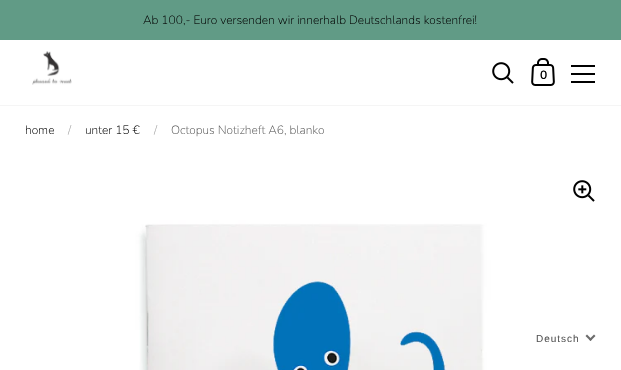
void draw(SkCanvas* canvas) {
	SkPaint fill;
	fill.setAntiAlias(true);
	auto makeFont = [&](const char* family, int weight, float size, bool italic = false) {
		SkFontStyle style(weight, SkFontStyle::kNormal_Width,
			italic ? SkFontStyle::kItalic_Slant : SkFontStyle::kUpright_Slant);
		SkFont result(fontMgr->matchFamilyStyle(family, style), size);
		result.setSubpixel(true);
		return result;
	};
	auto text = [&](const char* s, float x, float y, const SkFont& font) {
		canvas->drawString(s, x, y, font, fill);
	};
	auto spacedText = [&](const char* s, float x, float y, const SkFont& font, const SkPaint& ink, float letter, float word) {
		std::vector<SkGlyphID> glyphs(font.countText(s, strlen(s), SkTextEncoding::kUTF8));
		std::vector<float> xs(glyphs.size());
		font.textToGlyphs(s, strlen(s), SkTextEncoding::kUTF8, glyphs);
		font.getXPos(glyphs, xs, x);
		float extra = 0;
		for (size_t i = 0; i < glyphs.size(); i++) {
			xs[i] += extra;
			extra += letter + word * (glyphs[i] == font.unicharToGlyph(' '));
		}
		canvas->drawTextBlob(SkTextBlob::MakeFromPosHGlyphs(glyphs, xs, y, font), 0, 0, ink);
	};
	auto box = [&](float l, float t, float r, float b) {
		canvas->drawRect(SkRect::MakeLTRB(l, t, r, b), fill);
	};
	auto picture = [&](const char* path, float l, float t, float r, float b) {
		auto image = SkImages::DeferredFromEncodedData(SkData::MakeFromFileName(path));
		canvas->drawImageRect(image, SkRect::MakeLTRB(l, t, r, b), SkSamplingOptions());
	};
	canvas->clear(0xFFFFFFFF);
	fill.setColor(0xFF619B86);
	box(0, 0, 621, 40);
	fill.setColor(0xFFF5F5F5);
	box(0, 105, 621, 106);
	picture("image0.png", 32, 51, 72, 85);
	picture("image1.png", 492, 62, 514, 84);
	picture("image2.png", 531, 58, 555, 86);
	fill.setColor(0xFF000000);
	box(571, 65, 595, 67);
	box(571, 73, 595, 75);
	box(571, 81, 595, 83);
	picture("image3.png", 0, 154, 621, 370);
	picture("image4.png", 573, 180, 595, 202);
	fill.setColor(0xFF6C6C6C);
	canvas->drawPath(SkPathBuilder().moveTo(594, 334.5f).lineTo(595.5f, 336).lineTo(590.5f, 341).lineTo(589, 339.5f).close().detach(), fill);
	canvas->drawPath(SkPathBuilder().moveTo(587, 334.5f).lineTo(592, 339.5f).lineTo(590.5f, 341).lineTo(585.5f, 336).close().detach(), fill);
	auto font1 = makeFont("Nunito Sans", 200, 12);
	fill.setColor(0xFF000000);
	text("Ab 100,- Euro versenden wir innerhalb Deutschlands kostenfrei!", 143, 24, font1);
	auto font2 = makeFont("Nunito Sans", 600, 12);
	text("0", 540, 79, font2);
	text("home", 25, 134, font1);
	fill.setColor(0xFFA3A3A3);
	text("/", 68, 134, font1);
	fill.setColor(0xFF000000);
	text("unter 15 €", 85, 134, font1);
	fill.setColor(0xFFA3A3A3);
	text("/", 154, 134, font1);
	fill.setColor(0xFF575757);
	text("Octopus Notizheft A6, blanko", 171, 134, font1);
	auto font3 = makeFont("Liberation Sans", 400, 10);
	spacedText("Deutsch", 536, 342, font3, fill, 1, 0);
}
